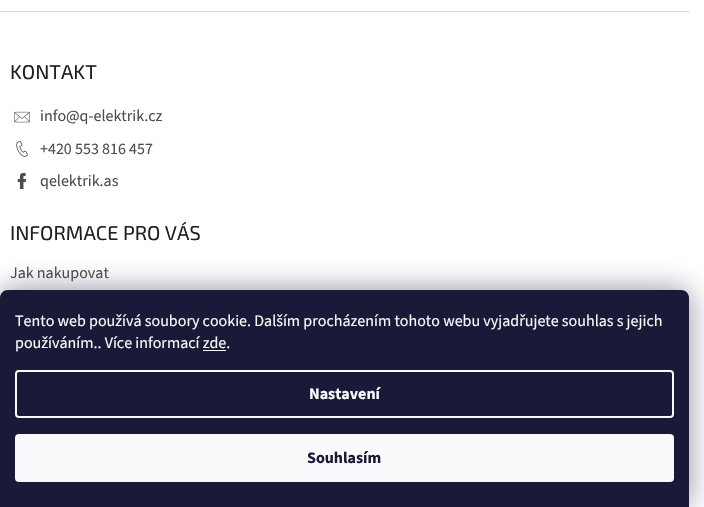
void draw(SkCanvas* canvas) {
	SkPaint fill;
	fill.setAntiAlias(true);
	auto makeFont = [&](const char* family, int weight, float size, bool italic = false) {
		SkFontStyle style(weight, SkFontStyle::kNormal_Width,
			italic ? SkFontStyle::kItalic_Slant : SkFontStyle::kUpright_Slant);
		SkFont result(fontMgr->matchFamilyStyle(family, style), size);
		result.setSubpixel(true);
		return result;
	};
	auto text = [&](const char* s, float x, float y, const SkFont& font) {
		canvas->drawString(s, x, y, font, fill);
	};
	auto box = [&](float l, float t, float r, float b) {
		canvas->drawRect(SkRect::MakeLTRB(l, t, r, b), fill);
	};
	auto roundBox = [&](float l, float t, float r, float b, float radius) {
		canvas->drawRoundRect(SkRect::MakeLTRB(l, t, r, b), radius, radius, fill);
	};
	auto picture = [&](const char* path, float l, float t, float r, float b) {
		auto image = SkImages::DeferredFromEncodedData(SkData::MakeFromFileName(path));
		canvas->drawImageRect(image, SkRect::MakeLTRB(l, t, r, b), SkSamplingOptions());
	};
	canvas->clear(0xFFFFFFFF);
	fill.setColor(0xFFDADADA);
	box(0, 11, 689, 12);
	picture("image0.png", 14, 111, 30, 123);
	picture("image1.png", 16, 141, 28, 157);
	picture("image2.png", 17, 173, 27, 189);
	fill.setColor(0x801B1939);
	fill.setMaskFilter(SkMaskFilter::MakeBlur(kNormal_SkBlurStyle, 15));
	canvas->drawRoundRect(SkRect::MakeLTRB(0, 290, 689, 507), 8, 8, fill);
	fill.setMaskFilter(nullptr);
	fill.setColor(0xFF1A1937);
	canvas->drawPath(SkPathBuilder().moveTo(8, 290).lineTo(681, 290).cubicTo(685.5f, 290, 689, 293.5f, 689, 298).lineTo(689, 507).lineTo(0, 507).lineTo(0, 298).cubicTo(0, 293.5f, 3.5f, 290, 8, 290).close().detach(), fill);
	fill.setColor(0xFFF8FAFB);
	box(203, 350, 226, 351);
	fill.setStyle(SkPaint::kStroke_Style);
	fill.setStrokeWidth(2);
	canvas->drawRoundRect(SkRect::MakeLTRB(16, 371, 673, 417), 3, 3, fill);
	fill.setStyle(SkPaint::kFill_Style);
	roundBox(15, 434, 674, 482, 4);
	auto font1 = makeFont("Exo 2", 400, 20);
	fill.setColor(0xFF1F1F1F);
	text("KONTAKT", 10, 79, font1);
	auto font2 = makeFont("Source Sans 3", 400, 16);
	fill.setColor(0xFF4D4D4D);
	text("info@q-elektrik.cz", 40, 121, font2);
	text("+420 553 816 457", 40, 154, font2);
	text("qelektrik.as", 40, 186, font2);
	fill.setColor(0xFF1F1F1F);
	text("INFORMACE PRO VÁS", 10, 240, font1);
	fill.setColor(0xFF4D4D4D);
	text("Jak nakupovat", 10, 278, font2);
	fill.setColor(0xFFF8FAFB);
	text("Tento web používá soubory cookie. Dalším procházením tohoto webu vyjadřujete souhlas s jejich", 15, 326, font2);
	text("používáním.. Více informací zde.", 15, 348, font2);
	auto font3 = makeFont("Source Sans 3", 700, 16);
	text("Nastavení", 309, 399, font3);
	fill.setColor(0xFF1A1937);
	text("Souhlasím", 307, 463, font3);
}
